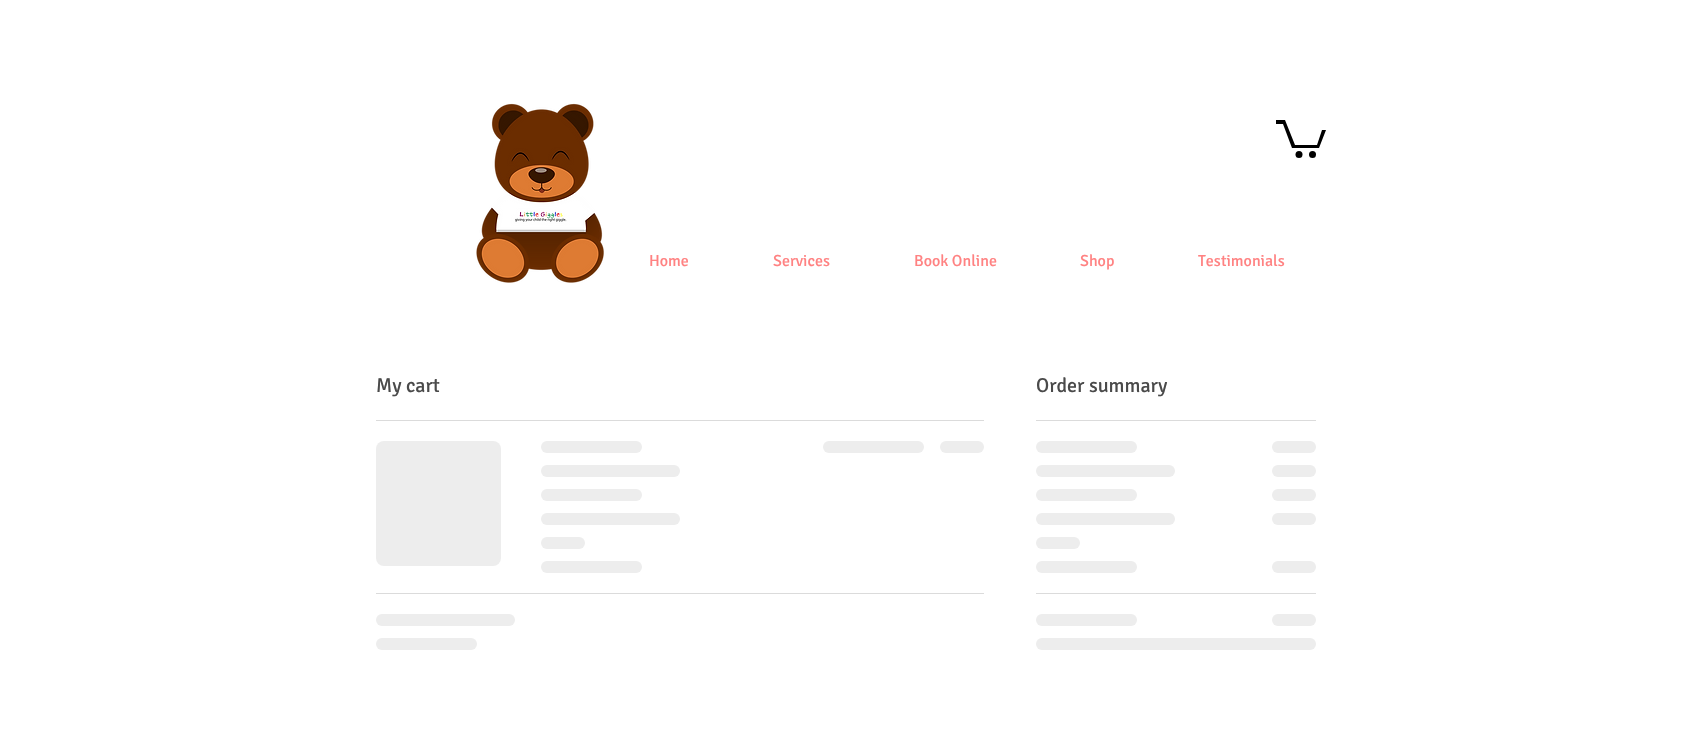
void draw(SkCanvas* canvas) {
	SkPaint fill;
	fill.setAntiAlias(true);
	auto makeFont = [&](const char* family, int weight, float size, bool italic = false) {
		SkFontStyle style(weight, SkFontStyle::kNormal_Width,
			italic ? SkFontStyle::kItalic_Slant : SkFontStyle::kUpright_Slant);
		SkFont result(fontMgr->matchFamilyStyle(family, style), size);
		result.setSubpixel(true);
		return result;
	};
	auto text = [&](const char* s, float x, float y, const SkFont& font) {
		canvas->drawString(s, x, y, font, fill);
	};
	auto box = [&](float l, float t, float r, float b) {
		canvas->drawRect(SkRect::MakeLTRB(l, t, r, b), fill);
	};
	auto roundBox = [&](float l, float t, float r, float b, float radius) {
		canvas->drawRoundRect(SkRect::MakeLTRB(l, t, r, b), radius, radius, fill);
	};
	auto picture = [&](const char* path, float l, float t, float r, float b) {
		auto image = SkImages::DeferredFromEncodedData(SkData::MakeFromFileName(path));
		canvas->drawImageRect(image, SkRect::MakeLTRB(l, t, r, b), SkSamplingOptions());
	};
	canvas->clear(0xFFFFFFFF);
	picture("image0.png", 476, 103, 604, 283);
	fill.setColor(0xFF000000);
	canvas->drawPath(SkPathBuilder().moveTo(1326, 130).lineTo(1319, 148).lineTo(1292, 148).lineTo(1283, 124).lineTo(1276, 124).lineTo(1276, 120).lineTo(1285, 120).lineTo(1295, 145).lineTo(1317, 145).lineTo(1322, 130).detach(), fill);
	canvas->drawCircle(1312.5f, 154.5f, 3.5f, fill);
	canvas->drawCircle(1299, 154.5f, 3.5f, fill);
	fill.setColor(0xFFDBDBDB);
	box(376, 420, 984, 421);
	{
		const SkColor colors[] = {0xFFEDEDED, 0xFFDBDBDB, 0xFFEDEDED};
		const float stops[] = {0.25f, 0.37f, 0.63f};
		const SkPoint ends[] = {{376, 504}, {876, 504}};
		fill.setShader(SkGradientShader::MakeLinear(ends, colors, stops, 3, SkTileMode::kClamp));
		fill.setAlpha(255);
	}
	roundBox(376, 441, 501, 566, 8);
	{
		const SkColor colors[] = {0xFFEDEDED, 0xFFDBDBDB, 0xFFEDEDED};
		const float stops[] = {0.25f, 0.37f, 0.63f};
		const SkPoint ends[] = {{541, 447}, {945, 447}};
		fill.setShader(SkGradientShader::MakeLinear(ends, colors, stops, 3, SkTileMode::kClamp));
		fill.setAlpha(255);
	}
	roundBox(541, 441, 642, 453, 6);
	{
		const SkColor colors[] = {0xFFEDEDED, 0xFFDBDBDB, 0xFFEDEDED};
		const float stops[] = {0.25f, 0.37f, 0.63f};
		const SkPoint ends[] = {{541, 471}, {1097, 471}};
		fill.setShader(SkGradientShader::MakeLinear(ends, colors, stops, 3, SkTileMode::kClamp));
		fill.setAlpha(255);
	}
	roundBox(541, 465, 680, 477, 6);
	{
		const SkColor colors[] = {0xFFEDEDED, 0xFFDBDBDB, 0xFFEDEDED};
		const float stops[] = {0.25f, 0.37f, 0.63f};
		const SkPoint ends[] = {{541, 495}, {945, 495}};
		fill.setShader(SkGradientShader::MakeLinear(ends, colors, stops, 3, SkTileMode::kClamp));
		fill.setAlpha(255);
	}
	roundBox(541, 489, 642, 501, 6);
	{
		const SkColor colors[] = {0xFFEDEDED, 0xFFDBDBDB, 0xFFEDEDED};
		const float stops[] = {0.25f, 0.37f, 0.63f};
		const SkPoint ends[] = {{541, 519}, {1097, 519}};
		fill.setShader(SkGradientShader::MakeLinear(ends, colors, stops, 3, SkTileMode::kClamp));
		fill.setAlpha(255);
	}
	roundBox(541, 513, 680, 525, 6);
	{
		const SkColor colors[] = {0xFFEDEDED, 0xFFDBDBDB, 0xFFEDEDED};
		const float stops[] = {0.25f, 0.37f, 0.63f};
		const SkPoint ends[] = {{541, 543}, {717, 543}};
		fill.setShader(SkGradientShader::MakeLinear(ends, colors, stops, 3, SkTileMode::kClamp));
		fill.setAlpha(255);
	}
	roundBox(541, 537, 585, 549, 6);
	{
		const SkColor colors[] = {0xFFEDEDED, 0xFFDBDBDB, 0xFFEDEDED};
		const float stops[] = {0.25f, 0.37f, 0.63f};
		const SkPoint ends[] = {{541, 567}, {945, 567}};
		fill.setShader(SkGradientShader::MakeLinear(ends, colors, stops, 3, SkTileMode::kClamp));
		fill.setAlpha(255);
	}
	roundBox(541, 561, 642, 573, 6);
	{
		const SkColor colors[] = {0xFFEDEDED, 0xFFDBDBDB, 0xFFEDEDED};
		const float stops[] = {0.25f, 0.37f, 0.63f};
		const SkPoint ends[] = {{823, 447}, {1227, 447}};
		fill.setShader(SkGradientShader::MakeLinear(ends, colors, stops, 3, SkTileMode::kClamp));
		fill.setAlpha(255);
	}
	roundBox(823, 441, 924, 453, 6);
	{
		const SkColor colors[] = {0xFFEDEDED, 0xFFDBDBDB, 0xFFEDEDED};
		const float stops[] = {0.25f, 0.37f, 0.63f};
		const SkPoint ends[] = {{940, 447}, {1116, 447}};
		fill.setShader(SkGradientShader::MakeLinear(ends, colors, stops, 3, SkTileMode::kClamp));
		fill.setAlpha(255);
	}
	roundBox(940, 441, 984, 453, 6);
	fill.setShader(nullptr);
	fill.setColor(0xFFDBDBDB);
	box(376, 593, 984, 594);
	{
		const SkColor colors[] = {0xFFEDEDED, 0xFFDBDBDB, 0xFFEDEDED};
		const float stops[] = {0.25f, 0.37f, 0.63f};
		const SkPoint ends[] = {{376, 620}, {932, 620}};
		fill.setShader(SkGradientShader::MakeLinear(ends, colors, stops, 3, SkTileMode::kClamp));
		fill.setAlpha(255);
	}
	roundBox(376, 614, 515, 626, 6);
	{
		const SkColor colors[] = {0xFFEDEDED, 0xFFDBDBDB, 0xFFEDEDED};
		const float stops[] = {0.25f, 0.37f, 0.63f};
		const SkPoint ends[] = {{376, 644}, {780, 644}};
		fill.setShader(SkGradientShader::MakeLinear(ends, colors, stops, 3, SkTileMode::kClamp));
		fill.setAlpha(255);
	}
	roundBox(376, 638, 477, 650, 6);
	fill.setShader(nullptr);
	fill.setColor(0xFFDBDBDB);
	box(1036, 420, 1316, 421);
	{
		const SkColor colors[] = {0xFFEDEDED, 0xFFDBDBDB, 0xFFEDEDED};
		const float stops[] = {0.25f, 0.37f, 0.63f};
		const SkPoint ends[] = {{1036, 447}, {1440, 447}};
		fill.setShader(SkGradientShader::MakeLinear(ends, colors, stops, 3, SkTileMode::kClamp));
		fill.setAlpha(255);
	}
	roundBox(1036, 441, 1137, 453, 6);
	{
		const SkColor colors[] = {0xFFEDEDED, 0xFFDBDBDB, 0xFFEDEDED};
		const float stops[] = {0.25f, 0.37f, 0.63f};
		const SkPoint ends[] = {{1272, 447}, {1448, 447}};
		fill.setShader(SkGradientShader::MakeLinear(ends, colors, stops, 3, SkTileMode::kClamp));
		fill.setAlpha(255);
	}
	roundBox(1272, 441, 1316, 453, 6);
	{
		const SkColor colors[] = {0xFFEDEDED, 0xFFDBDBDB, 0xFFEDEDED};
		const float stops[] = {0.25f, 0.37f, 0.63f};
		const SkPoint ends[] = {{1036, 471}, {1592, 471}};
		fill.setShader(SkGradientShader::MakeLinear(ends, colors, stops, 3, SkTileMode::kClamp));
		fill.setAlpha(255);
	}
	roundBox(1036, 465, 1175, 477, 6);
	{
		const SkColor colors[] = {0xFFEDEDED, 0xFFDBDBDB, 0xFFEDEDED};
		const float stops[] = {0.25f, 0.37f, 0.63f};
		const SkPoint ends[] = {{1272, 471}, {1448, 471}};
		fill.setShader(SkGradientShader::MakeLinear(ends, colors, stops, 3, SkTileMode::kClamp));
		fill.setAlpha(255);
	}
	roundBox(1272, 465, 1316, 477, 6);
	{
		const SkColor colors[] = {0xFFEDEDED, 0xFFDBDBDB, 0xFFEDEDED};
		const float stops[] = {0.25f, 0.37f, 0.63f};
		const SkPoint ends[] = {{1036, 495}, {1440, 495}};
		fill.setShader(SkGradientShader::MakeLinear(ends, colors, stops, 3, SkTileMode::kClamp));
		fill.setAlpha(255);
	}
	roundBox(1036, 489, 1137, 501, 6);
	{
		const SkColor colors[] = {0xFFEDEDED, 0xFFDBDBDB, 0xFFEDEDED};
		const float stops[] = {0.25f, 0.37f, 0.63f};
		const SkPoint ends[] = {{1272, 495}, {1448, 495}};
		fill.setShader(SkGradientShader::MakeLinear(ends, colors, stops, 3, SkTileMode::kClamp));
		fill.setAlpha(255);
	}
	roundBox(1272, 489, 1316, 501, 6);
	{
		const SkColor colors[] = {0xFFEDEDED, 0xFFDBDBDB, 0xFFEDEDED};
		const float stops[] = {0.25f, 0.37f, 0.63f};
		const SkPoint ends[] = {{1036, 519}, {1592, 519}};
		fill.setShader(SkGradientShader::MakeLinear(ends, colors, stops, 3, SkTileMode::kClamp));
		fill.setAlpha(255);
	}
	roundBox(1036, 513, 1175, 525, 6);
	{
		const SkColor colors[] = {0xFFEDEDED, 0xFFDBDBDB, 0xFFEDEDED};
		const float stops[] = {0.25f, 0.37f, 0.63f};
		const SkPoint ends[] = {{1272, 519}, {1448, 519}};
		fill.setShader(SkGradientShader::MakeLinear(ends, colors, stops, 3, SkTileMode::kClamp));
		fill.setAlpha(255);
	}
	roundBox(1272, 513, 1316, 525, 6);
	{
		const SkColor colors[] = {0xFFEDEDED, 0xFFDBDBDB, 0xFFEDEDED};
		const float stops[] = {0.25f, 0.37f, 0.63f};
		const SkPoint ends[] = {{1036, 543}, {1212, 543}};
		fill.setShader(SkGradientShader::MakeLinear(ends, colors, stops, 3, SkTileMode::kClamp));
		fill.setAlpha(255);
	}
	roundBox(1036, 537, 1080, 549, 6);
	{
		const SkColor colors[] = {0xFFEDEDED, 0xFFDBDBDB, 0xFFEDEDED};
		const float stops[] = {0.25f, 0.37f, 0.63f};
		const SkPoint ends[] = {{1036, 567}, {1440, 567}};
		fill.setShader(SkGradientShader::MakeLinear(ends, colors, stops, 3, SkTileMode::kClamp));
		fill.setAlpha(255);
	}
	roundBox(1036, 561, 1137, 573, 6);
	{
		const SkColor colors[] = {0xFFEDEDED, 0xFFDBDBDB, 0xFFEDEDED};
		const float stops[] = {0.25f, 0.37f, 0.63f};
		const SkPoint ends[] = {{1272, 567}, {1448, 567}};
		fill.setShader(SkGradientShader::MakeLinear(ends, colors, stops, 3, SkTileMode::kClamp));
		fill.setAlpha(255);
	}
	roundBox(1272, 561, 1316, 573, 6);
	fill.setShader(nullptr);
	fill.setColor(0xFFDBDBDB);
	box(1036, 593, 1316, 594);
	{
		const SkColor colors[] = {0xFFEDEDED, 0xFFDBDBDB, 0xFFEDEDED};
		const float stops[] = {0.25f, 0.37f, 0.63f};
		const SkPoint ends[] = {{1036, 620}, {1440, 620}};
		fill.setShader(SkGradientShader::MakeLinear(ends, colors, stops, 3, SkTileMode::kClamp));
		fill.setAlpha(255);
	}
	roundBox(1036, 614, 1137, 626, 6);
	{
		const SkColor colors[] = {0xFFEDEDED, 0xFFDBDBDB, 0xFFEDEDED};
		const float stops[] = {0.25f, 0.37f, 0.63f};
		const SkPoint ends[] = {{1272, 620}, {1448, 620}};
		fill.setShader(SkGradientShader::MakeLinear(ends, colors, stops, 3, SkTileMode::kClamp));
		fill.setAlpha(255);
	}
	roundBox(1272, 614, 1316, 626, 6);
	{
		const SkColor colors[] = {0xFFEDEDED, 0xFFDBDBDB, 0xFFEDEDED};
		const float stops[] = {0.25f, 0.37f, 0.63f};
		const SkPoint ends[] = {{1036, 644}, {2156, 644}};
		fill.setShader(SkGradientShader::MakeLinear(ends, colors, stops, 3, SkTileMode::kClamp));
		fill.setAlpha(255);
	}
	roundBox(1036, 638, 1316, 650, 6);
	auto font1 = makeFont("Signika", 400, 16);
	fill.setShader(nullptr);
	fill.setColor(0xFFFF8282);
	text("Home", 649, 266, font1);
	text("Services", 773, 266, font1);
	text("Book Online", 914, 266, font1);
	text("Shop", 1080, 266, font1);
	text("Testimonials", 1198, 266, font1);
	auto font2 = makeFont("Signika", 400, 20);
	fill.setColor(0xFF4A4A4A);
	text("My cart", 376, 392, font2);
	text("Order summary", 1036, 392, font2);
}
